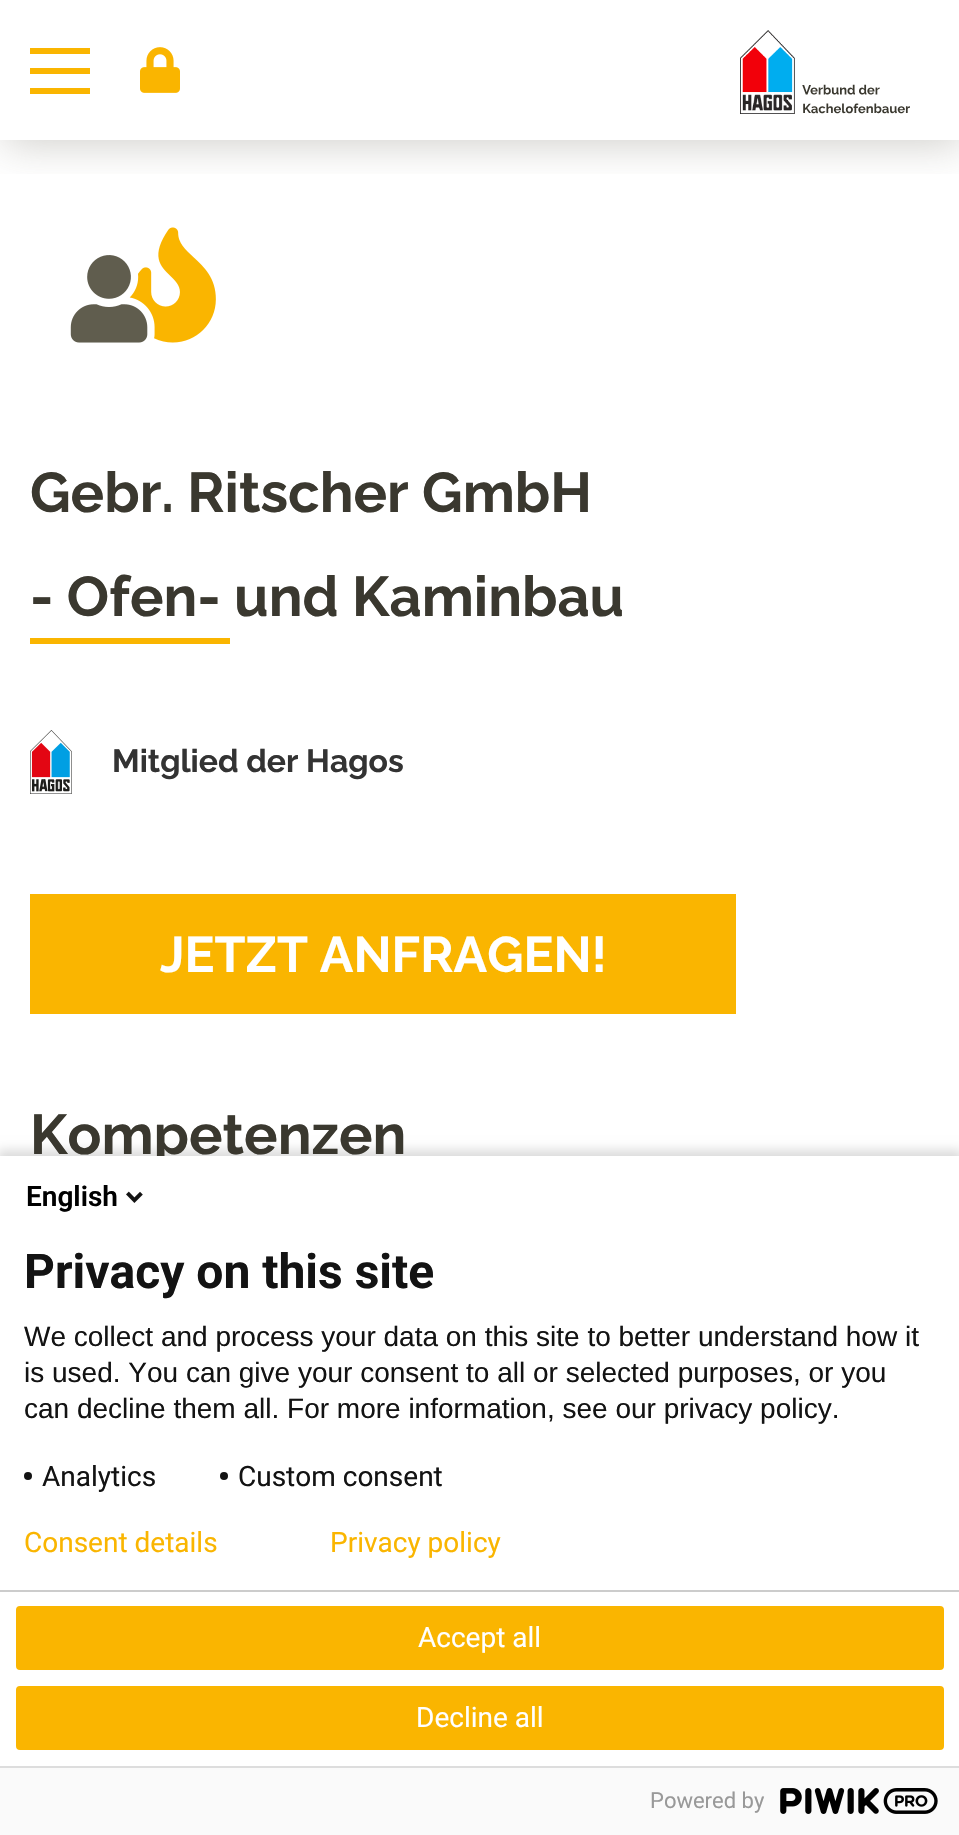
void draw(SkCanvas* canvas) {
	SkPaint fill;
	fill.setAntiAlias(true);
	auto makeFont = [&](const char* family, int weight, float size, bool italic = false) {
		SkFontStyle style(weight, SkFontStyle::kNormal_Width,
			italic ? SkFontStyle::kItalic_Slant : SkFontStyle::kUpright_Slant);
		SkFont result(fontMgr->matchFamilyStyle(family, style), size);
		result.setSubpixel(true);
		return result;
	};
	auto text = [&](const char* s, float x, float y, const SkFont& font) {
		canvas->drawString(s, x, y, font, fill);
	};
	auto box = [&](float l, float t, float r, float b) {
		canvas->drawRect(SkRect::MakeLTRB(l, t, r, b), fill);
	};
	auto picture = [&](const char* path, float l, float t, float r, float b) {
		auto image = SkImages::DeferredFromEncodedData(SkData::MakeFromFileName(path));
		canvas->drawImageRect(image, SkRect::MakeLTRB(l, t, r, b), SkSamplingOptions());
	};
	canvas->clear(0xFFFFFFFF);
	canvas->save();
	canvas->clipRect(SkRect::MakeLTRB(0, 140, 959, 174));
	fill.setColor(0x4D605D4E);
	fill.setMaskFilter(SkMaskFilter::MakeBlur(kNormal_SkBlurStyle, 20));
	canvas->drawRect(SkRect::MakeLTRB(4, 4, 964, 144), fill);
	fill.setMaskFilter(nullptr);
	canvas->restore();
	fill.setColor(0xFFFAB500);
	box(30, 48, 90, 54);
	box(30, 68, 90, 74);
	box(30, 88, 90, 94);
	picture("image0.png", 140, 47, 180, 93);
	picture("image1.png", 740, 30, 910, 114);
	picture("image2.png", 70, 227, 216, 343);
	box(30, 638, 230, 644);
	picture("image3.png", 30, 730, 72, 794);
	box(30, 894, 736, 1014);
	fill.setColor(0x24000000);
	fill.setMaskFilter(SkMaskFilter::MakeBlur(kNormal_SkBlurStyle, 5));
	canvas->drawRect(SkRect::MakeLTRB(-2, 1150, 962, 1834), fill);
	fill.setMaskFilter(nullptr);
	fill.setColor(0xFFFAFAFA);
	box(0, 1768, 959, 1835);
	fill.setColor(0xFFDDDDDD);
	box(0, 1766, 959, 1768);
	picture("image5.png", 780, 1788, 938, 1814);
	auto font1 = makeFont("Raleway", 700, 56);
	fill.setColor(0xFF3A382F);
	text("Gebr. Ritscher GmbH", 30, 512, font1);
	text("- Ofen- und Kaminbau", 30, 616, font1);
	auto font2 = makeFont("Raleway", 700, 32);
	fill.setColor(0xFF333333);
	text("Mitglied der Hagos", 112, 772, font2);
	auto font3 = makeFont("Raleway", 700, 50);
	fill.setColor(0xFFFFFFFF);
	text("JETZT ANFRAGEN!", 160, 972, font3);
	fill.setColor(0xFF3A382F);
	text("Kompetenzen", 30, 1154, font1);
	fill.setColor(0xFFFFFFFF);
	box(0, 1156, 959, 1766);
	auto font4 = makeFont("Roboto", 600, 28);
	fill.setColor(0xFF000000);
	text("English", 26, 1206, font4);
	picture("image4.png", 126, 1191, 143, 1203);
	auto font5 = makeFont("Roboto", 700, 48);
	fill.setColor(0xFF131313);
	text("Privacy on this site", 24, 1288, font5);
	auto font6 = makeFont("Liberation Sans", 400, 28);
	text("We collect and process your data on this site to better understand how it", 24, 1346, font6);
	text("is used. You can give your consent to all or selected purposes, or you", 24, 1382, font6);
	text("can decline them all. For more information, see our privacy policy.", 24, 1418, font6);
	canvas->drawCircle(28, 1476, 4, fill);
	auto font7 = makeFont("Roboto", 400, 28);
	text("Analytics", 42, 1486, font7);
	canvas->drawCircle(224, 1476, 4, fill);
	text("Custom consent", 238, 1486, font7);
	fill.setColor(0xFFCCCCCC);
	box(0, 1590, 959, 1592);
	fill.setColor(0xFFFAB500);
	canvas->drawRoundRect(SkRect::MakeLTRB(17, 1607, 943, 1669), 3, 3, fill);
	fill.setStyle(SkPaint::kStroke_Style);
	fill.setStrokeWidth(2);
	canvas->drawRoundRect(SkRect::MakeLTRB(17, 1607, 943, 1669), 3, 3, fill);
	fill.setStyle(SkPaint::kFill_Style);
	fill.setColor(0xFFFFFFFF);
	text("Accept all", 418, 1647, font7);
	fill.setColor(0xFFFAB500);
	canvas->drawRoundRect(SkRect::MakeLTRB(17, 1687, 943, 1749), 3, 3, fill);
	fill.setStyle(SkPaint::kStroke_Style);
	canvas->drawRoundRect(SkRect::MakeLTRB(17, 1687, 943, 1749), 3, 3, fill);
	fill.setStyle(SkPaint::kFill_Style);
	fill.setColor(0xFFFFFFFF);
	text("Decline all", 416, 1727, font7);
	fill.setColor(0xFFFAB500);
	text("Consent details", 24, 1552, font7);
	text("Privacy policy", 330, 1552, font7);
	auto font8 = makeFont("Roboto", 400, 22);
	fill.setColor(0xFF999999);
	text("Powered by", 650, 1808, font8);
}
